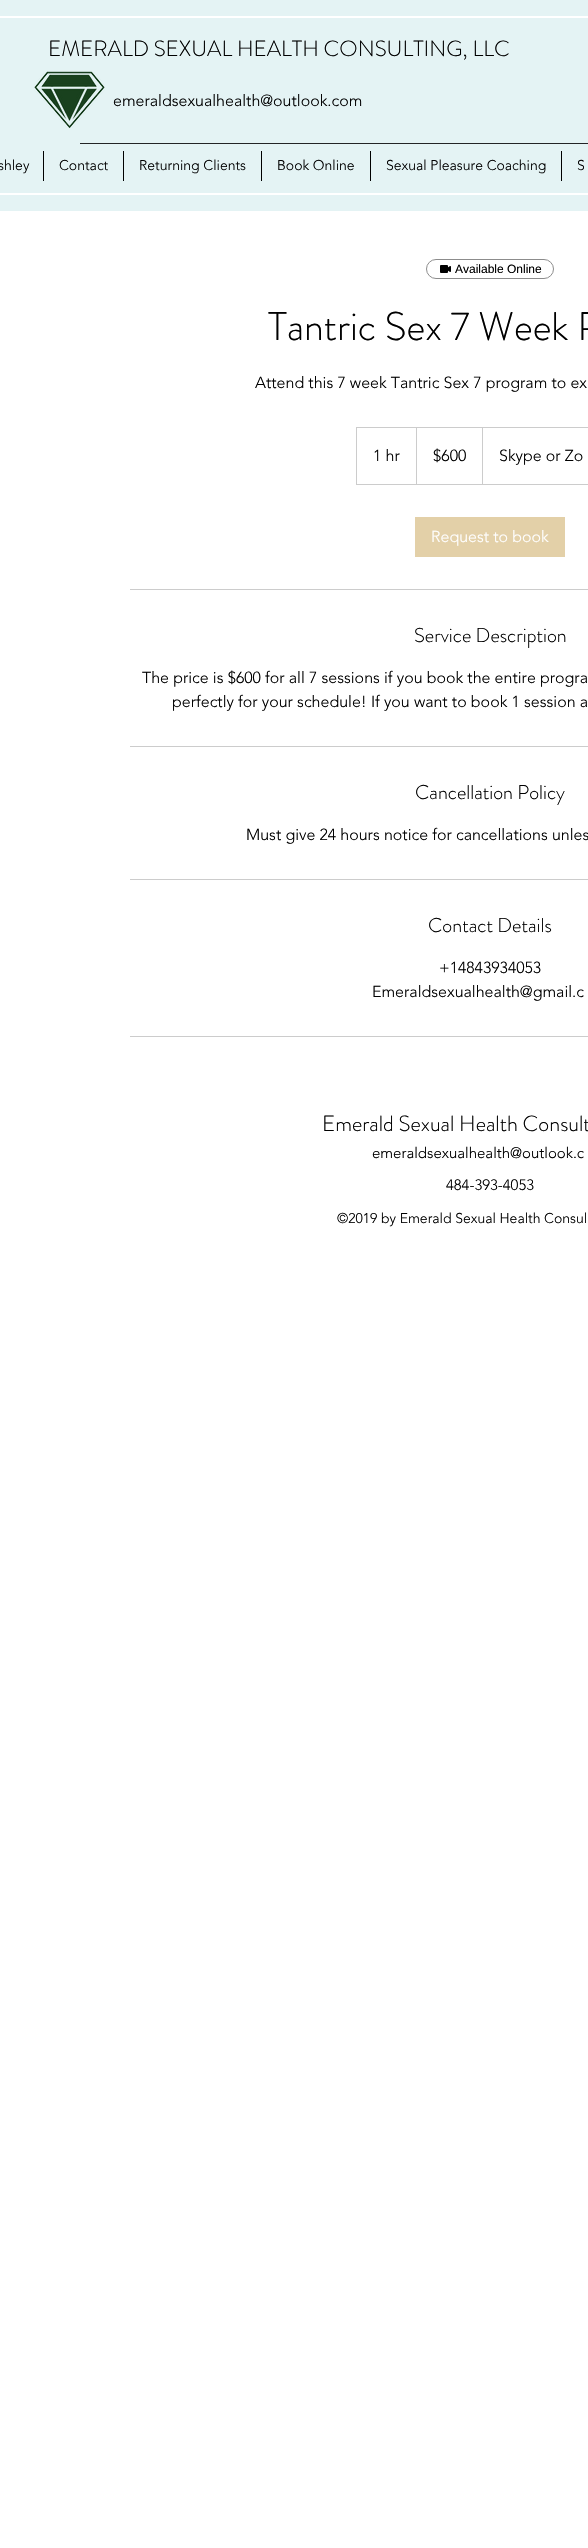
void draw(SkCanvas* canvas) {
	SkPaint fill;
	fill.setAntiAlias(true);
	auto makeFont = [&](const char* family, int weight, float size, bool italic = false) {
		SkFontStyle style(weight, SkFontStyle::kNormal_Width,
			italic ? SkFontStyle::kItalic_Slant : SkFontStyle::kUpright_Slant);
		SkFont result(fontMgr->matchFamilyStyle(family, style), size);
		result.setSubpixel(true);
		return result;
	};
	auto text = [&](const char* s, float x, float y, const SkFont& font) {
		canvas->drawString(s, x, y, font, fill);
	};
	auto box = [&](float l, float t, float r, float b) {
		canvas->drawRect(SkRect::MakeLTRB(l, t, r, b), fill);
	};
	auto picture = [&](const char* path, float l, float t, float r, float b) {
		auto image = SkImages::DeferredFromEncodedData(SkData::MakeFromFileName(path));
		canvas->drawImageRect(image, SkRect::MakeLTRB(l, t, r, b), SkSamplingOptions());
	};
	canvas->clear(0xFFFFFFFF);
	fill.setColor(0xFFE4F3F4);
	box(0, 0, 588, 211);
	fill.setColor(0xFFFFFFFF);
	box(0, 16, 588, 18);
	box(0, 193, 588, 195);
	picture("image0.png", 34, 71, 105, 129);
	fill.setColor(0xFF222425);
	box(80, 143, 588, 144);
	fill.setColor(0xFF000000);
	box(43, 151, 44, 181);
	box(123, 151, 124, 181);
	box(261, 151, 262, 181);
	box(370, 151, 371, 181);
	box(561, 151, 562, 181);
	fill.setStyle(SkPaint::kStroke_Style);
	fill.setStrokeWidth(1);
	fill.setColor(0xFF8C8C8C);
	canvas->drawRoundRect(SkRect::MakeLTRB(426.5f, 259.5f, 553.5f, 278.5f), 9.5f, 9.5f, fill);
	picture("image1.png", 440, 265, 451, 273);
	fill.setColor(0xFFCCCCCC);
	canvas->drawRect(SkRect::MakeLTRB(356.5f, 427.5f, 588.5f, 484.5f), fill);
	fill.setStyle(SkPaint::kFill_Style);
	canvas->drawPath(SkPathBuilder().moveTo(416, 484).lineTo(416, 427).lineTo(417, 428).lineTo(417, 484).close().detach(), fill);
	canvas->drawPath(SkPathBuilder().moveTo(482, 484).lineTo(482, 427).lineTo(483, 428).lineTo(483, 484).close().detach(), fill);
	fill.setColor(0xFFE3D0A8);
	box(415, 517, 565, 557);
	fill.setColor(0xFFCCCCCC);
	box(130, 589, 588, 590);
	box(130, 746, 588, 747);
	box(130, 879, 588, 880);
	box(130, 1036, 588, 1037);
	auto font1 = makeFont("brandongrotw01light", 300, 22);
	fill.setColor(0xFF000000);
	text("EMERALD SEXUAL HEALTH CONSULTING, LLC", 48, 56, font1);
	auto font2 = makeFont("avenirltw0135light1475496", 300, 16);
	text("emeraldsexualhealth@outlook.com", 113, 106, font2);
	auto font3 = makeFont("avenirltw0135light1475496", 300, 14);
	text("shley", -2, 170, font3);
	text("Contact", 59, 170, font3);
	text("Returning Clients", 139, 170, font3);
	text("Book Online", 277, 170, font3);
	text("Sexual Pleasure Coaching", 386, 170, font3);
	text("S", 577, 170, font3);
	auto font4 = makeFont("Liberation Sans", 400, 12);
	text("Available Online", 455, 273, font4);
	auto font5 = makeFont("brandongrotw01light", 300, 40);
	text("Tantric Sex 7 Week P", 268, 340, font5);
	text("Attend this 7 week Tantric Sex 7 program to ex", 255, 388, font2);
	text("1 hr", 373, 461, font2);
	text("$600", 433, 461, font2);
	text("Skype or Zo", 499, 461, font2);
	fill.setColor(0xFFFFFFFF);
	text("Request to book", 431, 542, font2);
	auto font6 = makeFont("brandongrotw01light", 300, 20);
	fill.setColor(0xFF000000);
	text("Service Description", 414, 642, font6);
	text("The price is $600 for all 7 sessions if you book the entire progra", 142, 683, font2);
	text("perfectly for your schedule! If you want to book 1 session a", 172, 707, font2);
	text("Cancellation Policy", 415, 799, font6);
	text("Must give 24 hours notice for cancellations unles", 246, 840, font2);
	text("Contact Details", 428, 932, font6);
	text("+14843934053", 439, 973, font2);
	text("Emeraldsexualhealth@gmail.c", 372, 997, font2);
	text("Emerald Sexual Health Consult", 322, 1131, font1);
	auto font7 = makeFont("avenirltw0135light1475496", 300, 15);
	text("emeraldsexualhealth@outlook.c", 372, 1158, font7);
	text("484-393-4053", 446, 1190, font7);
	text("©2019 by Emerald Sexual Health Consul", 337, 1223, font3);
}
